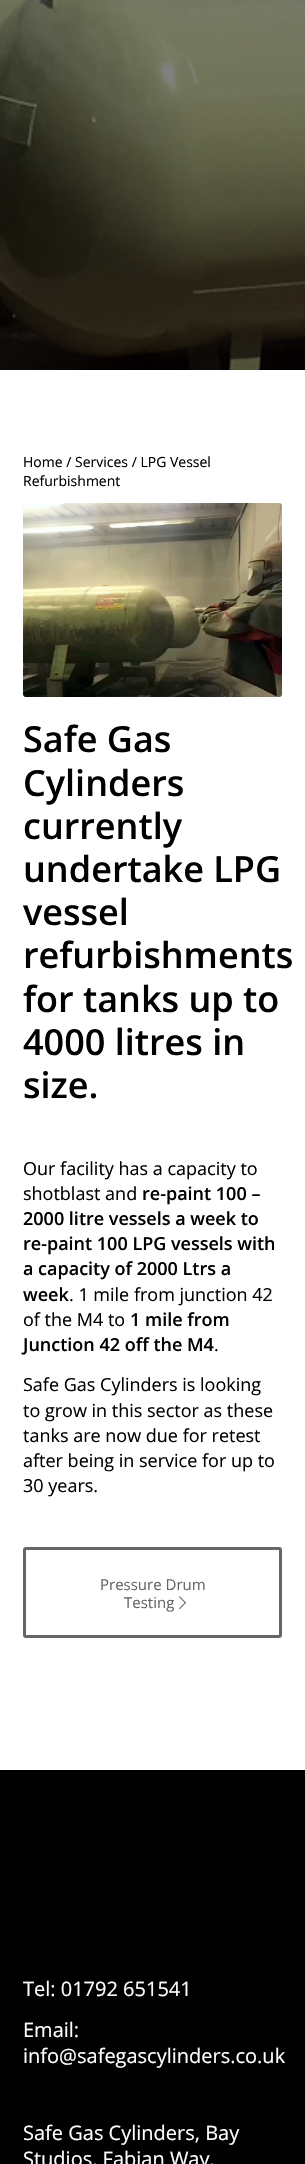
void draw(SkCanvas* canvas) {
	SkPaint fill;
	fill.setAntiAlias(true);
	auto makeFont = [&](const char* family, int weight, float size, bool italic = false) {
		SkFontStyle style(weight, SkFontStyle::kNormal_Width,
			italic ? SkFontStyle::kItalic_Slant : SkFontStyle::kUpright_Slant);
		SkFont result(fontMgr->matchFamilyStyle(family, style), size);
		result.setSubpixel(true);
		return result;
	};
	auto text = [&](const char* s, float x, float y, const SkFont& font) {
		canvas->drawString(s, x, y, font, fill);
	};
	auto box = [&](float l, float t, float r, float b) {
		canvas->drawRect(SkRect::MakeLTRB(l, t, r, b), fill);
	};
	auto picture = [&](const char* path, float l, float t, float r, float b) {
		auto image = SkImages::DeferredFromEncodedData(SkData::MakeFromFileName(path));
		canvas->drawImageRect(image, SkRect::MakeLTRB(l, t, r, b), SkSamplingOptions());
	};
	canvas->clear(0xFF000000);
	fill.setColor(0xFFFFFFFF);
	box(0, 370, 305, 1770);
	picture("image0.png", 0, 0, 305, 370);
	picture("image1.png", 23, 503, 282, 697);
	fill.setStyle(SkPaint::kStroke_Style);
	fill.setStrokeWidth(3);
	fill.setColor(0xFF666666);
	canvas->drawRoundRect(SkRect::MakeLTRB(24.5f, 1548.5f, 280.5f, 1636.5f), 1.5f, 1.5f, fill);
	picture("image2.png", 179, 1596, 186, 1610);
	auto font1 = makeFont("Open Sans", 400, 14);
	fill.setStyle(SkPaint::kFill_Style);
	fill.setColor(0xFF000000);
	text("Home / Services / LPG Vessel", 23, 467, font1);
	text("Refurbishment", 23, 486, font1);
	auto font2 = makeFont("Open Sans", 600, 36);
	text("Safe Gas", 23, 752, font2);
	text("Cylinders", 23, 796, font2);
	text("currently", 23, 839, font2);
	text("undertake LPG", 23, 882, font2);
	text("vessel", 23, 925, font2);
	text("refurbishments", 23, 968, font2);
	text("for tanks up to", 23, 1012, font2);
	text("4000 litres in", 23, 1055, font2);
	text("size.", 23, 1098, font2);
	auto font3 = makeFont("Open Sans", 400, 18);
	text("Our facility has a capacity to", 23, 1175, font3);
	text("shotblast and", 23, 1200, font3);
	auto font4 = makeFont("Open Sans", 600, 18);
	text("re-paint 100 –", 142, 1200, font4);
	text("2000 litre vessels a week to", 23, 1225, font4);
	text("re-paint 100 LPG vessels with", 23, 1250, font4);
	text("a capacity of 2000 Ltrs a", 23, 1275, font4);
	text("week", 23, 1301, font4);
	text(". 1 mile from junction 42", 69, 1301, font3);
	text("of the M4 to", 23, 1326, font3);
	text("1 mile from", 130, 1326, font4);
	text("Junction 42 off the M4", 23, 1351, font4);
	text(".", 214, 1351, font3);
	text("Safe Gas Cylinders is looking", 23, 1391, font3);
	text("to grow in this sector as these", 23, 1417, font3);
	text("tanks are now due for retest", 23, 1442, font3);
	text("after being in service for up to", 23, 1467, font3);
	text("30 years.", 23, 1492, font3);
	auto font5 = makeFont("Open Sans", 400, 15);
	fill.setColor(0xFF666666);
	text("Pressure Drum", 100, 1590, font5);
	text("Testing", 124, 1608, font5);
	auto font6 = makeFont("Open Sans", 400, 20);
	fill.setColor(0xFFFFFFFF);
	text("Tel: 01792 651541", 23, 1996, font6);
	text("Email:", 23, 2037, font6);
	text("info@safegascylinders.co.uk", 23, 2063, font6);
	text("Safe Gas Cylinders, Bay", 23, 2140, font6);
	text("Studios, Fabian Way,", 23, 2166, font6);
}
